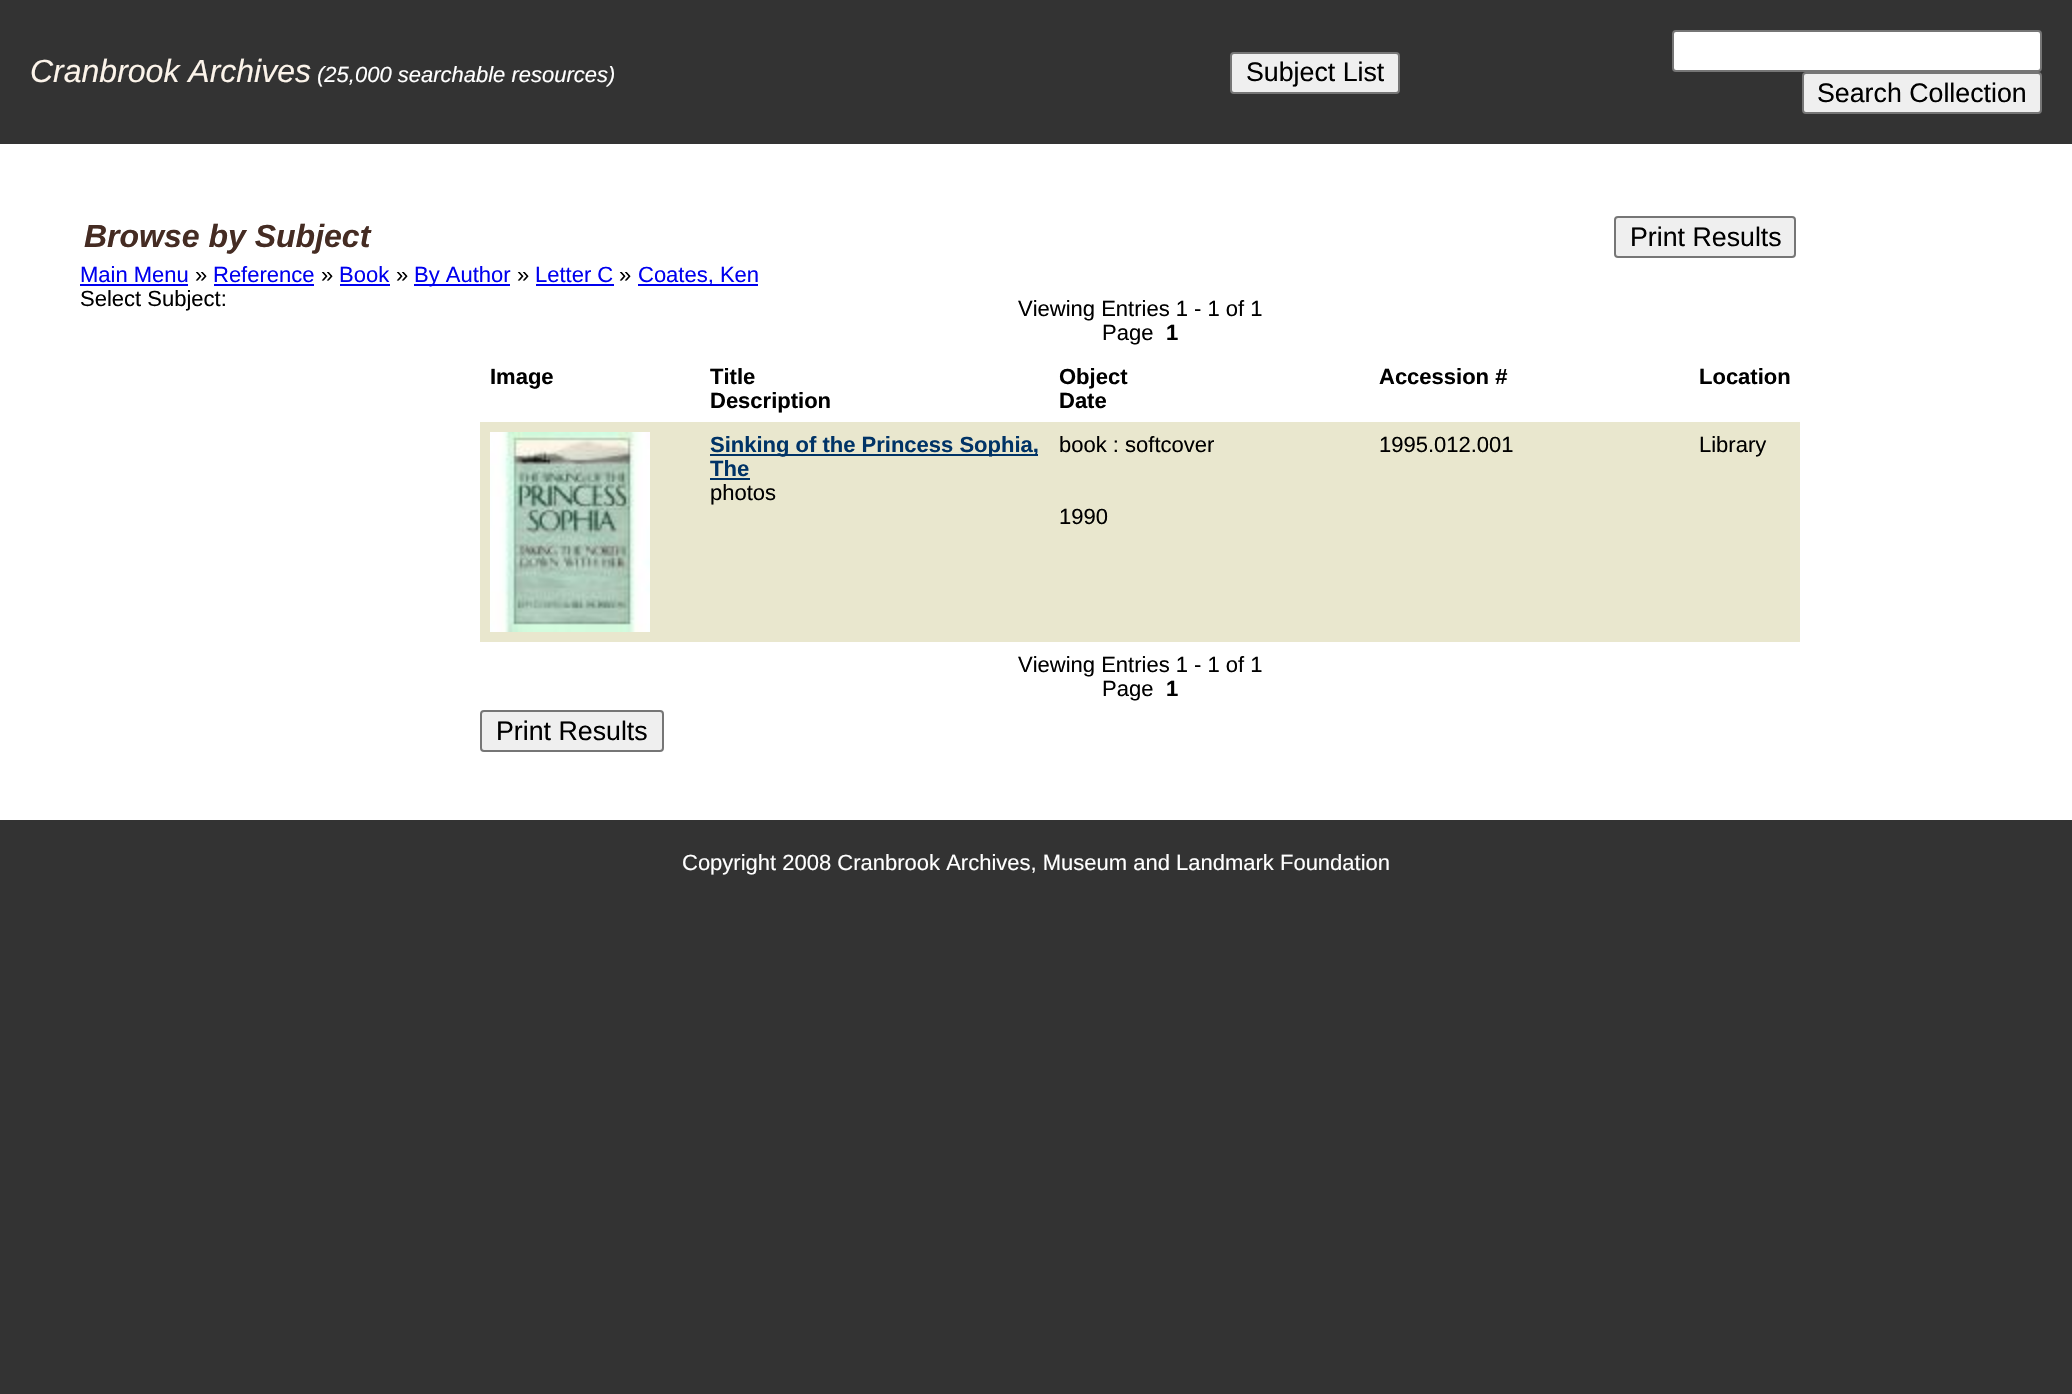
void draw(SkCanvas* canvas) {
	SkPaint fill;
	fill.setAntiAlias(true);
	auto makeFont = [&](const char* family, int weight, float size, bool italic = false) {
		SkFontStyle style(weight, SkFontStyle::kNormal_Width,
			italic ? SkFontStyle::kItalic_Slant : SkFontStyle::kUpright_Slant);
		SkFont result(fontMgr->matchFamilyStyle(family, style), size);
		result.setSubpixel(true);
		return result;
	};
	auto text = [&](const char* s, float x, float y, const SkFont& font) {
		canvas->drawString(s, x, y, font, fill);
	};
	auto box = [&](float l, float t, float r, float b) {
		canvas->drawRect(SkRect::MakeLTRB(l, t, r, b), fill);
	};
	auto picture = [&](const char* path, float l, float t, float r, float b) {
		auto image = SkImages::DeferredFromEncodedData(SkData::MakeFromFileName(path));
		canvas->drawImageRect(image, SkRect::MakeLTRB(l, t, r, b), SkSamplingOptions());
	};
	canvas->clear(0xFF333333);
	fill.setColor(0xFFEFEFEF);
	canvas->drawRoundRect(SkRect::MakeLTRB(1231, 53, 1399, 93), 3, 3, fill);
	fill.setStyle(SkPaint::kStroke_Style);
	fill.setStrokeWidth(2);
	fill.setColor(0xFF767676);
	canvas->drawRoundRect(SkRect::MakeLTRB(1231, 53, 1399, 93), 3, 3, fill);
	fill.setStyle(SkPaint::kFill_Style);
	fill.setColor(0xFFFFFFFF);
	canvas->drawRoundRect(SkRect::MakeLTRB(1673, 31, 2041, 71), 3, 3, fill);
	fill.setStyle(SkPaint::kStroke_Style);
	fill.setColor(0xFF767676);
	canvas->drawRoundRect(SkRect::MakeLTRB(1673, 31, 2041, 71), 3, 3, fill);
	fill.setStyle(SkPaint::kFill_Style);
	fill.setColor(0xFFEFEFEF);
	canvas->drawRoundRect(SkRect::MakeLTRB(1803, 73, 2041, 113), 3, 3, fill);
	fill.setStyle(SkPaint::kStroke_Style);
	fill.setColor(0xFF767676);
	canvas->drawRoundRect(SkRect::MakeLTRB(1803, 73, 2041, 113), 3, 3, fill);
	fill.setStyle(SkPaint::kFill_Style);
	fill.setColor(0xFFFFFFFF);
	box(0, 144, 2072, 820);
	fill.setColor(0xFFEFEFEF);
	canvas->drawRoundRect(SkRect::MakeLTRB(1615, 217, 1795, 257), 3, 3, fill);
	fill.setStyle(SkPaint::kStroke_Style);
	fill.setColor(0xFF767676);
	canvas->drawRoundRect(SkRect::MakeLTRB(1615, 217, 1795, 257), 3, 3, fill);
	fill.setStyle(SkPaint::kFill_Style);
	fill.setColor(0xFF0000EE);
	box(80, 284, 188, 286);
	box(214, 284, 314, 286);
	box(340, 284, 390, 286);
	box(414, 284, 510, 286);
	box(536, 284, 614, 286);
	box(638, 284, 758, 286);
	fill.setColor(0xFFE9E7CE);
	box(480, 422, 1800, 642);
	picture("image0.png", 490, 432, 650, 632);
	fill.setColor(0xFF003366);
	box(710, 454, 1038, 456);
	box(710, 478, 750, 480);
	fill.setColor(0xFFEFEFEF);
	canvas->drawRoundRect(SkRect::MakeLTRB(481, 711, 663, 751), 3, 3, fill);
	fill.setStyle(SkPaint::kStroke_Style);
	fill.setColor(0xFF767676);
	canvas->drawRoundRect(SkRect::MakeLTRB(481, 711, 663, 751), 3, 3, fill);
	auto font1 = makeFont("Liberation Sans", 400, 32, true);
	fill.setStyle(SkPaint::kFill_Style);
	fill.setColor(0xFFFCF4EA);
	text("Cranbrook Archives", 30, 82, font1);
	auto font2 = makeFont("Liberation Sans", 400, 22, true);
	fill.setColor(0xFFFFFFFF);
	text("(25,000 searchable resources)", 317, 82, font2);
	auto font3 = makeFont("Liberation Sans", 400, 26.75f);
	fill.setColor(0xFF000000);
	text("Subject List", 1246, 81, font3);
	text("Search Collection", 1817, 102, font3);
	auto font4 = makeFont("Liberation Sans", 700, 32, true);
	fill.setColor(0xFF452C23);
	text("Browse by Subject", 84, 247, font4);
	fill.setColor(0xFF000000);
	text("Print Results", 1630, 246, font3);
	auto font5 = makeFont("Liberation Sans", 400, 22);
	fill.setColor(0xFF0000EE);
	text("Main Menu", 80, 282, font5);
	fill.setColor(0xFF000000);
	text("»", 195, 282, font5);
	fill.setColor(0xFF0000EE);
	text("Reference", 213, 282, font5);
	fill.setColor(0xFF000000);
	text("»", 321, 282, font5);
	fill.setColor(0xFF0000EE);
	text("Book", 339, 282, font5);
	fill.setColor(0xFF000000);
	text("»", 396, 282, font5);
	fill.setColor(0xFF0000EE);
	text("By Author", 414, 282, font5);
	fill.setColor(0xFF000000);
	text("»", 517, 282, font5);
	fill.setColor(0xFF0000EE);
	text("Letter C", 535, 282, font5);
	fill.setColor(0xFF000000);
	text("»", 619, 282, font5);
	fill.setColor(0xFF0000EE);
	text("Coates, Ken", 638, 282, font5);
	fill.setColor(0xFF000000);
	text("Select Subject:", 80, 306, font5);
	text("Viewing Entries 1 - 1 of 1", 1018, 316, font5);
	text("Page", 1102, 340, font5);
	auto font6 = makeFont("Liberation Sans", 700, 22);
	text("1", 1166, 340, font6);
	text("Image", 490, 384, font6);
	text("Title", 710, 384, font6);
	text("Description", 710, 408, font6);
	text("Object", 1059, 384, font6);
	text("Date", 1059, 408, font6);
	text("Accession #", 1379, 384, font6);
	text("Location", 1699, 384, font6);
	fill.setColor(0xFF003366);
	text("Sinking of the Princess Sophia,", 710, 452, font6);
	text("The", 710, 476, font6);
	fill.setColor(0xFF000000);
	text("photos", 710, 500, font5);
	text("book : softcover", 1059, 452, font5);
	text("1990", 1059, 524, font5);
	text("1995.012.001", 1379, 452, font5);
	text("Library", 1699, 452, font5);
	text("Viewing Entries 1 - 1 of 1", 1018, 672, font5);
	text("Page", 1102, 696, font5);
	text("1", 1166, 696, font6);
	text("Print Results", 496, 740, font3);
	fill.setColor(0xFFFFFFFF);
	text("Copyright 2008 Cranbrook Archives, Museum and Landmark Foundation", 682, 870, font5);
}
